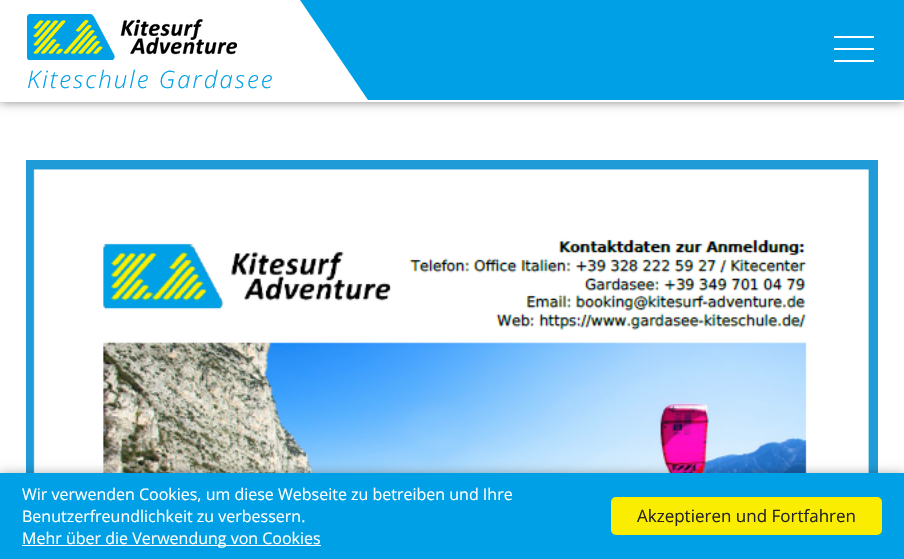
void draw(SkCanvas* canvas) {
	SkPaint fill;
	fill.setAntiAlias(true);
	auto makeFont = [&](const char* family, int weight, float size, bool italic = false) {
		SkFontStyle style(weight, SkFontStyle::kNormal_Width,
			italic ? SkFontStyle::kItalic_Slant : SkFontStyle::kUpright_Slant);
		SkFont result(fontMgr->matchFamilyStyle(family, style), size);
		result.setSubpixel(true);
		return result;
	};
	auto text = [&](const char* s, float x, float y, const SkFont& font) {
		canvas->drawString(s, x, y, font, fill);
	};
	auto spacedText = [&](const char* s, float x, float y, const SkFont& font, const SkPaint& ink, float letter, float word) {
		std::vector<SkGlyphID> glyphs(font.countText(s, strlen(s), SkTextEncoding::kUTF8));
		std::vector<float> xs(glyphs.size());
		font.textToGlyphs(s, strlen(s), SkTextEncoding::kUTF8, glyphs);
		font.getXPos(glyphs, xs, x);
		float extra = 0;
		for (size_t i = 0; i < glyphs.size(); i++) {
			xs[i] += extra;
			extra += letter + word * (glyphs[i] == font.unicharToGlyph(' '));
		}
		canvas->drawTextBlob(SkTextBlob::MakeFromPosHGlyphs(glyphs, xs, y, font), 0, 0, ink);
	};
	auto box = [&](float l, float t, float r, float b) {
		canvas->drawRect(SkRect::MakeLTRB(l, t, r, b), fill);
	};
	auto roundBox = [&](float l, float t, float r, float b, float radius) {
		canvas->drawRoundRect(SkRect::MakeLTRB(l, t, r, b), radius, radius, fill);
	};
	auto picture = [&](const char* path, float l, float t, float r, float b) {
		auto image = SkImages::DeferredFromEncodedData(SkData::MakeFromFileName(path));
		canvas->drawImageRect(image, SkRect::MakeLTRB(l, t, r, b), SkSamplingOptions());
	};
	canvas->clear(0xFFFFFFFF);
	fill.setColor(0x4D000000);
	fill.setMaskFilter(SkMaskFilter::MakeBlur(kNormal_SkBlurStyle, 5));
	canvas->drawRect(SkRect::MakeLTRB(0, 0, 904, 100), fill);
	fill.setMaskFilter(nullptr);
	fill.setMaskFilter(SkMaskFilter::MakeBlur(kNormal_SkBlurStyle, 5));
	canvas->drawRect(SkRect::MakeLTRB(0, 0, 904, 102), fill);
	fill.setMaskFilter(nullptr);
	fill.setColor(0xFF00A0E6);
	box(300, 0, 904, 100);
	fill.setColor(0xFFFFFFFF);
	box(834, 36, 874, 38);
	box(834, 48, 874, 50);
	box(834, 60, 874, 62);
	box(0, 100, 904, 102);
	box(0, 0, 300, 100);
	picture("image0.png", 27, 14, 237, 60);
	canvas->drawPath(SkPathBuilder().moveTo(368, 100).lineTo(299, 100).lineTo(300, 0).close().detach(), fill);
	picture("image1.png", 26, 160, 878, 473);
	fill.setColor(0x4D000000);
	fill.setMaskFilter(SkMaskFilter::MakeBlur(kNormal_SkBlurStyle, 5));
	canvas->drawRect(SkRect::MakeLTRB(0, 473, 904, 559), fill);
	fill.setMaskFilter(nullptr);
	fill.setColor(0xFF00A0E6);
	box(0, 473, 904, 559);
	fill.setColor(0xFFFAED02);
	roundBox(611, 497, 882, 535, 5);
	fill.setColor(0xFFFFFFFF);
	box(22, 545, 321, 546);
	auto font1 = makeFont("Open Sans", 300, 24, true);
	fill.setColor(0xFF00A0E6);
	spacedText("Kiteschule Gardasee", 27, 88, font1, fill, 2, 0);
	auto font2 = makeFont("Open Sans", 400, 16);
	fill.setColor(0xFFFFFFFF);
	text("Wir verwenden Cookies, um diese Webseite zu betreiben und Ihre", 22, 500, font2);
	text("Benutzerfreundlichkeit zu verbessern.", 22, 522, font2);
	auto font3 = makeFont("Open Sans", 400, 17);
	fill.setColor(0xFF252525);
	text("Akzeptieren und Fortfahren", 637, 522, font3);
	fill.setColor(0xFFFFFFFF);
	text("Mehr über die Verwendung von Cookies", 22, 544, font2);
}
